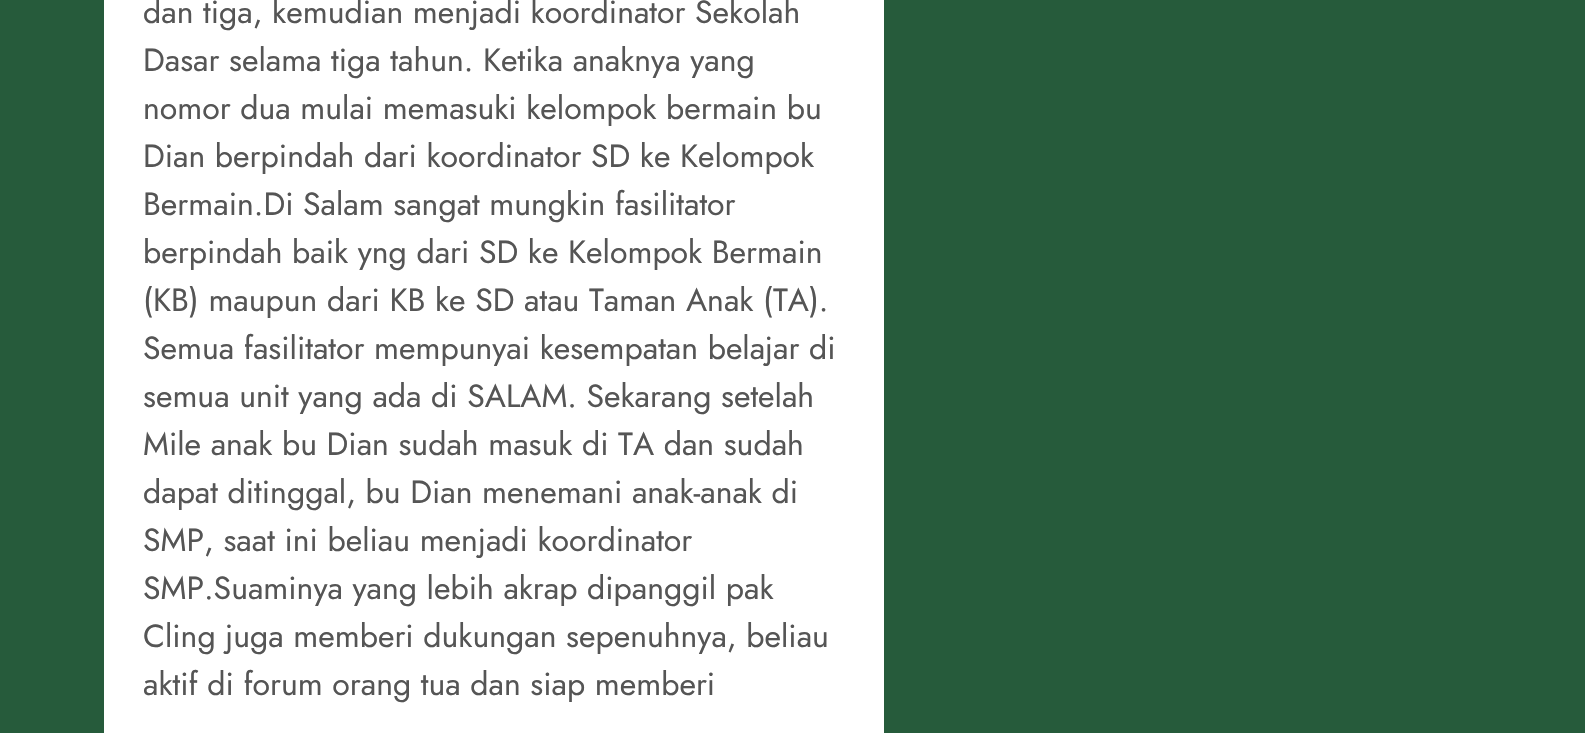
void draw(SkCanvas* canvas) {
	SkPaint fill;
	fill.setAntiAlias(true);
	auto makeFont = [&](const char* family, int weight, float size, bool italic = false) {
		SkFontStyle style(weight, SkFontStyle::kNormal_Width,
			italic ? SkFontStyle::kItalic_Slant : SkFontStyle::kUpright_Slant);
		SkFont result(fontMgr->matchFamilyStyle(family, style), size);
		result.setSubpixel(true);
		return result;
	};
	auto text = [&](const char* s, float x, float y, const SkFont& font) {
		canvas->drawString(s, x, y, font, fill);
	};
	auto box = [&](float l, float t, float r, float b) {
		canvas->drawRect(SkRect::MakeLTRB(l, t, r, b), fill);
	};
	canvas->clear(0xFF265B3B);
	fill.setColor(0xFFFFFFFF);
	box(104, 0, 884, 733);
	auto font1 = makeFont("Jost", 400, 32);
	fill.setColor(0xFF555555);
	text("dan tiga, kemudian menjadi koordinator Sekolah", 143, 23, font1);
	text("Dasar selama tiga tahun. Ketika anaknya yang", 143, 71, font1);
	text("nomor dua mulai memasuki kelompok bermain bu", 143, 119, font1);
	text("Dian berpindah dari koordinator SD ke Kelompok", 143, 167, font1);
	text("Bermain.Di Salam sangat mungkin fasilitator", 143, 215, font1);
	text("berpindah baik yng dari SD ke Kelompok Bermain", 143, 263, font1);
	text("(KB) maupun dari KB ke SD atau Taman Anak (TA).", 143, 311, font1);
	text("Semua fasilitator mempunyai kesempatan belajar di", 143, 359, font1);
	text("semua unit yang ada di SALAM. Sekarang setelah", 143, 407, font1);
	text("Mile anak bu Dian sudah masuk di TA dan sudah", 143, 455, font1);
	text("dapat ditinggal, bu Dian menemani anak-anak di", 143, 503, font1);
	text("SMP, saat ini beliau menjadi koordinator", 143, 551, font1);
	text("SMP.Suaminya yang lebih akrap dipanggil pak", 143, 599, font1);
	text("Cling juga memberi dukungan sepenuhnya, beliau", 143, 647, font1);
	text("aktif di forum orang tua dan siap memberi", 143, 695, font1);
}
